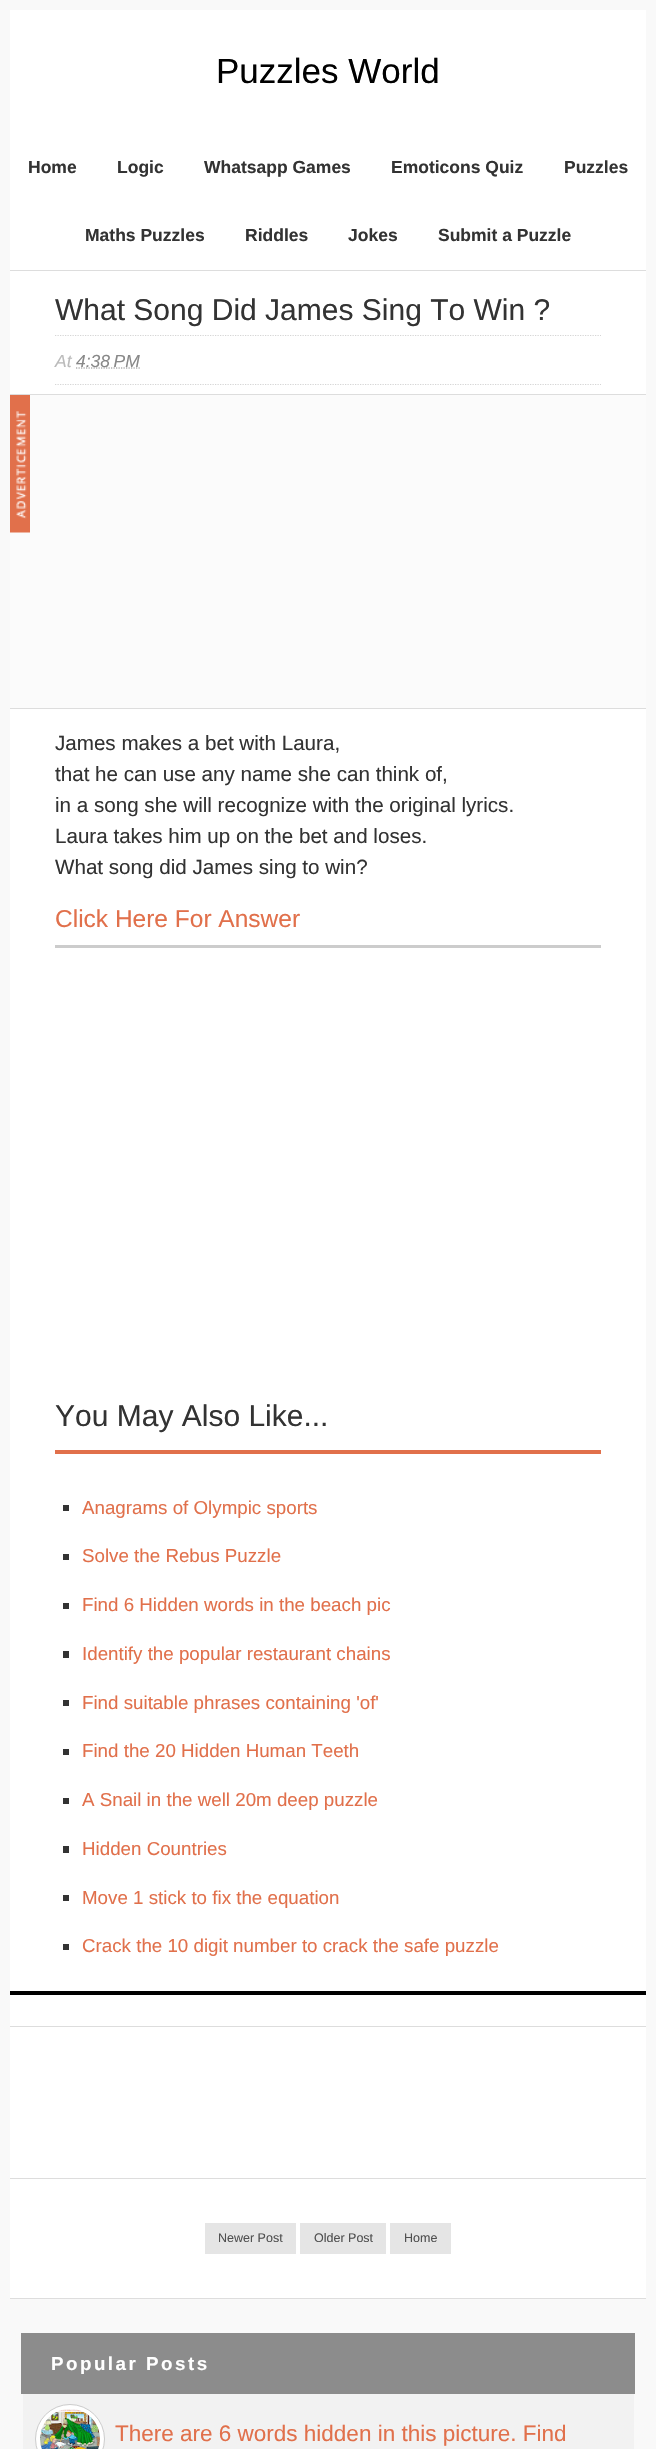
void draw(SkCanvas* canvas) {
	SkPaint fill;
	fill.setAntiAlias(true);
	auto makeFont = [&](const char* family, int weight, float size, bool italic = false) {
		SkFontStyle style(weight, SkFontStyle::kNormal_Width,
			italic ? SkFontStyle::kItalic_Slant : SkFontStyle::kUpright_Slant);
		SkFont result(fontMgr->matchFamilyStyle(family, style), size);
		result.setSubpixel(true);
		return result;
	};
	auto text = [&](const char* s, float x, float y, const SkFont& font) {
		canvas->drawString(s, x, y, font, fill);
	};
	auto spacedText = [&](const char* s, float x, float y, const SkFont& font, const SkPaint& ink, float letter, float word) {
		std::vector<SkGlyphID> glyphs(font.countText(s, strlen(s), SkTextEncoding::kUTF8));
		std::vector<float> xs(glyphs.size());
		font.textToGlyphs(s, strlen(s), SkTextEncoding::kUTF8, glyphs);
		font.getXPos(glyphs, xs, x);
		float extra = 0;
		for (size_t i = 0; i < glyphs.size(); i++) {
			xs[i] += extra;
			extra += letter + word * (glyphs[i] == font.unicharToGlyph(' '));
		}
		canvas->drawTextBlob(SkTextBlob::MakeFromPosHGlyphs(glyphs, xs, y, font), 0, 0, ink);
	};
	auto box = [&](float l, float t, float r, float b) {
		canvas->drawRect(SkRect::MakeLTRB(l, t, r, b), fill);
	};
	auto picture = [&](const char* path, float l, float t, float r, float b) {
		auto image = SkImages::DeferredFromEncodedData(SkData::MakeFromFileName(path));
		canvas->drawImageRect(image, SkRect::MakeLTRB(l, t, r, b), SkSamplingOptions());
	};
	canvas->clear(0xFFF9F9F9);
	fill.setColor(0xFFFFFFFF);
	box(10, 10, 646, 270);
	fill.setColor(0xFFDDDDDD);
	box(10, 270, 646, 271);
	fill.setColor(0xFFFFFFFF);
	box(10, 271, 646, 2298);
	fill.setColor(0xFFDDDDDD);
	box(10, 2298, 646, 2299);
	fill.setColor(0xFF000000);
	box(10, 1991, 646, 1995);
	fill.setStyle(SkPaint::kStroke_Style);
	fill.setStrokeWidth(1.2f);
	fill.setColor(0xFFD5D5D5);
	fill.setPathEffect(SkDashPathEffect::Make({{1.25f, 1.25f}}, 0));
	canvas->drawPath(SkPathBuilder().moveTo(55, 335.5f).lineTo(601, 335.5f).detach(), fill);
	fill.setPathEffect(nullptr);
	fill.setPathEffect(SkDashPathEffect::Make({{1.25f, 1.25f}}, 0));
	canvas->drawPath(SkPathBuilder().moveTo(55, 384.5f).lineTo(601, 384.5f).detach(), fill);
	fill.setPathEffect(nullptr);
	fill.setColor(0xFF888888);
	fill.setPathEffect(SkDashPathEffect::Make({{1.25f, 1.25f}}, 0));
	canvas->drawPath(SkPathBuilder().moveTo(76, 368).lineTo(140, 368).detach(), fill);
	fill.setPathEffect(nullptr);
	fill.setStyle(SkPaint::kFill_Style);
	fill.setColor(0xFFDDDDDD);
	box(10, 394, 646, 395);
	box(10, 708, 646, 709);
	fill.setColor(0xFFFBFBFB);
	box(10, 395, 646, 708);
	picture("image0.png", 10, 395, 30, 533);
	fill.setColor(0xFFCCCCCC);
	box(55, 945, 601, 948);
	fill.setColor(0xFFE1704B);
	box(55, 1450, 601, 1454);
	fill.setColor(0xFF333333);
	box(63, 1505, 69, 1511);
	box(63, 1554, 69, 1560);
	box(63, 1603, 69, 1609);
	box(63, 1651, 69, 1658);
	box(63, 1700, 69, 1706);
	box(63, 1749, 69, 1755);
	box(63, 1798, 69, 1804);
	box(63, 1846, 69, 1853);
	box(63, 1895, 69, 1901);
	box(63, 1944, 69, 1950);
	fill.setColor(0xFFDDDDDD);
	box(10, 2026, 646, 2027);
	box(10, 2178, 646, 2179);
	fill.setColor(0xFFE5E5E5);
	box(205, 2223, 296, 2254);
	box(300, 2223, 386, 2254);
	box(390, 2223, 451, 2254);
	fill.setColor(0xFFF2F2F2);
	box(23, 2394, 634, 2449);
	fill.setColor(0xFF8C8C8C);
	box(21, 2333, 635, 2394);
	fill.setColor(0xFFFFFFFF);
	canvas->drawCircle(70, 2439, 34.5f, fill);
	fill.setStyle(SkPaint::kStroke_Style);
	fill.setStrokeWidth(1);
	fill.setColor(0xFFCCCCCC);
	canvas->drawCircle(70, 2439, 34.5f, fill);
	picture("image1.png", 40, 2409, 100, 2449);
	auto font1 = makeFont("Liberation Sans", 400, 35);
	fill.setStyle(SkPaint::kFill_Style);
	fill.setColor(0xFF000000);
	text("Puzzles World", 216, 83, font1);
	auto font2 = makeFont("Liberation Sans", 700, 17.5f);
	fill.setColor(0xFF333333);
	text("Home", 28, 173, font2);
	text("Logic", 117, 173, font2);
	text("Whatsapp Games", 204, 173, font2);
	text("Emoticons Quiz", 391, 173, font2);
	text("Puzzles", 564, 173, font2);
	text("Maths Puzzles", 85, 241, font2);
	text("Riddles", 245, 241, font2);
	text("Jokes", 348, 241, font2);
	text("Submit a Puzzle", 438, 241, font2);
	auto font3 = makeFont("Liberation Sans", 400, 30);
	text("What Song Did James Sing To Win ?", 55, 320, font3);
	auto font4 = makeFont("Liberation Sans", 400, 17.5f, true);
	fill.setColor(0xFFBBBBBB);
	text("At", 55, 367, font4);
	fill.setColor(0xFF888888);
	text("4:38 PM", 76, 367, font4);
	auto font5 = makeFont("Liberation Sans", 400, 20.6f);
	fill.setColor(0xFF333333);
	text("James makes a bet with Laura,", 55, 750, font5);
	text("that he can use any name she can think of,", 55, 781, font5);
	text("in a song she will recognize with the original lyrics.", 55, 812, font5);
	text("Laura takes him up on the bet and loses.", 55, 843, font5);
	text("What song did James sing to win?", 55, 874, font5);
	auto font6 = makeFont("Liberation Sans", 400, 24.5f);
	fill.setColor(0xFFE1704B);
	text("Click Here For Answer", 55, 927, font6);
	fill.setColor(0xFF333333);
	text("You May Also Like...", 55, 1426, font3);
	auto font7 = makeFont("Liberation Sans", 400, 18.75f);
	fill.setColor(0xFFE1704B);
	text("Anagrams of Olympic sports", 82, 1514, font7);
	text("Solve the Rebus Puzzle", 82, 1562, font7);
	text("Find 6 Hidden words in the beach pic", 82, 1611, font7);
	text("Identify the popular restaurant chains", 82, 1660, font7);
	text("Find suitable phrases containing 'of'", 82, 1709, font7);
	text("Find the 20 Hidden Human Teeth", 82, 1757, font7);
	text("A Snail in the well 20m deep puzzle", 82, 1806, font7);
	text("Hidden Countries", 82, 1855, font7);
	text("Move 1 stick to fix the equation", 82, 1904, font7);
	text("Crack the 10 digit number to crack the safe puzzle", 82, 1952, font7);
	auto font8 = makeFont("Liberation Sans", 400, 12.5f);
	fill.setColor(0xFF505050);
	text("Newer Post", 218, 2242, font8);
	text("Older Post", 314, 2242, font8);
	text("Home", 404, 2242, font8);
	auto font9 = makeFont("Liberation Sans", 700, 18.75f);
	fill.setColor(0xFFFFFFFF);
	spacedText("Popular Posts", 51, 2370, font9, fill, 2.5f, 0);
	auto font10 = makeFont("Liberation Sans", 400, 22.5f);
	fill.setColor(0xFFE1704B);
	text("There are 6 words hidden in this picture. Find", 115, 2441, font10);
}
